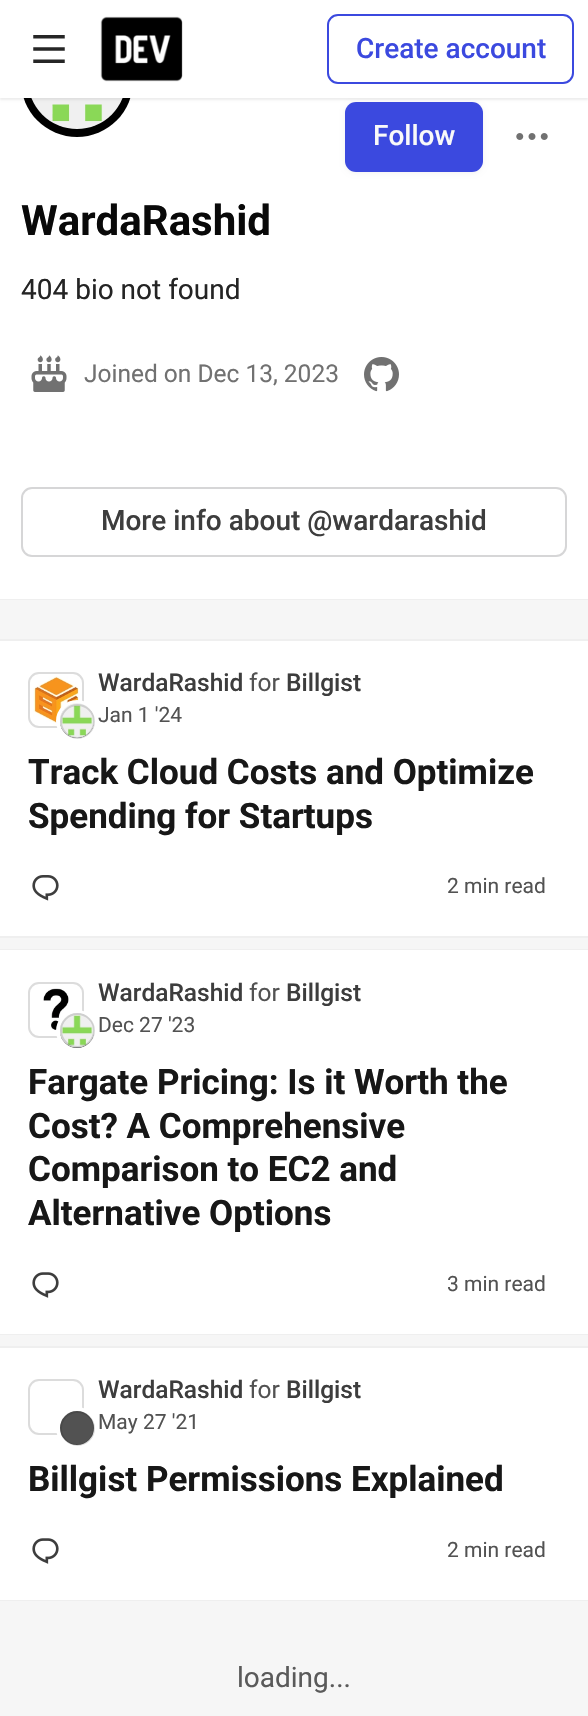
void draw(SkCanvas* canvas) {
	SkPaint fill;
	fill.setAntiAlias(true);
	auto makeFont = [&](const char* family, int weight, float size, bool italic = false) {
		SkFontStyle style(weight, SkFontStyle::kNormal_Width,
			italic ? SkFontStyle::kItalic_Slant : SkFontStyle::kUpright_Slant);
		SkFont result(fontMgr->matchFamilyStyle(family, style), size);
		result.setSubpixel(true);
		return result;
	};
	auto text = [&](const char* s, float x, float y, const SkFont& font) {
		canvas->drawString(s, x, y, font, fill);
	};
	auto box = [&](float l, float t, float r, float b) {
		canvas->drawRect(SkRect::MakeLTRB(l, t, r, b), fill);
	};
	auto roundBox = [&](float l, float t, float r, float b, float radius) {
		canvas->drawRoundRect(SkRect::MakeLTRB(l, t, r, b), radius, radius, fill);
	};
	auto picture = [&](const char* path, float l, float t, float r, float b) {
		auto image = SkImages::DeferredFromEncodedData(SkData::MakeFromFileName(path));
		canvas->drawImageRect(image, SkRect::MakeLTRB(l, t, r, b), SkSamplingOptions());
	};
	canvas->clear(0xFFF6F6F6);
	fill.setStyle(SkPaint::kStroke_Style);
	fill.setStrokeWidth(2);
	fill.setColor(0x08171717);
	canvas->drawRect(SkRect::MakeLTRB(-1, 80, 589, 599), fill);
	fill.setStyle(SkPaint::kFill_Style);
	fill.setColor(0xFFFFFFFF);
	box(0, 98, 588, 599);
	fill.setColor(0xFF000000);
	canvas->drawCircle(77, 81, 56, fill);
	picture("image2.png", 31, 98, 123, 129);
	fill.setColor(0x0D000000);
	fill.setMaskFilter(SkMaskFilter::MakeBlur(kNormal_SkBlurStyle, 2.5f));
	canvas->drawRoundRect(SkRect::MakeLTRB(345, 103, 483, 173), 11, 11, fill);
	fill.setMaskFilter(nullptr);
	fill.setColor(0xFF3B49DF);
	roundBox(345, 102, 483, 172, 11);
	fill.setColor(0x12000000);
	fill.setMaskFilter(SkMaskFilter::MakeBlur(kNormal_SkBlurStyle, 1));
	canvas->drawRect(SkRect::MakeLTRB(0, 2, 588, 100), fill);
	fill.setMaskFilter(nullptr);
	fill.setColor(0xFFFFFFFF);
	box(0, 0, 588, 98);
	picture("image0.png", 33, 35, 65, 63);
	picture("image1.png", 100, 16, 183, 82);
	fill.setStyle(SkPaint::kStroke_Style);
	fill.setColor(0xFF3B49DF);
	canvas->drawRoundRect(SkRect::MakeLTRB(328, 15, 573, 83), 10, 10, fill);
	picture("image3.png", 516, 133, 548, 140);
	picture("image4.png", 31, 355, 67, 392);
	picture("image5.png", 364, 357, 399, 392);
	fill.setColor(0xFFD6D6D7);
	canvas->drawRoundRect(SkRect::MakeLTRB(22, 488, 566, 556), 10, 10, fill);
	fill.setColor(0xFFEFEFEF);
	canvas->drawRect(SkRect::MakeLTRB(-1, 640, 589, 937), fill);
	fill.setStyle(SkPaint::kFill_Style);
	fill.setColor(0xFFFFFFFF);
	box(0, 641, 588, 936);
	picture("image6.png", 33, 676, 79, 726);
	fill.setStyle(SkPaint::kStroke_Style);
	fill.setColor(0xFFDCDCDC);
	canvas->drawRoundRect(SkRect::MakeLTRB(29, 673, 83, 727), 10, 10, fill);
	fill.setStyle(SkPaint::kFill_Style);
	fill.setColor(0xFF525252);
	canvas->drawCircle(77, 721, 19, fill);
	fill.setStyle(SkPaint::kStroke_Style);
	fill.setStrokeWidth(4);
	fill.setColor(0xFFFFFFFF);
	canvas->drawCircle(77, 721, 19, fill);
	picture("image7.png", 60, 703, 94, 738);
	fill.setStrokeWidth(2);
	fill.setColor(0x26171717);
	canvas->drawCircle(77.5f, 721.5f, 16.5f, fill);
	picture("image8.png", 32, 875, 59, 901);
	fill.setColor(0xFFEFEFEF);
	canvas->drawRect(SkRect::MakeLTRB(-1, 950, 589, 1334), fill);
	fill.setStyle(SkPaint::kFill_Style);
	fill.setColor(0xFFFFFFFF);
	box(0, 950, 588, 1334);
	picture("image9.png", 43, 988, 69, 1030);
	fill.setStyle(SkPaint::kStroke_Style);
	fill.setColor(0xFFDCDCDC);
	canvas->drawRoundRect(SkRect::MakeLTRB(29, 983, 83, 1037), 10, 10, fill);
	fill.setStyle(SkPaint::kFill_Style);
	fill.setColor(0xFF525252);
	canvas->drawCircle(77, 1031, 19, fill);
	fill.setStyle(SkPaint::kStroke_Style);
	fill.setStrokeWidth(4);
	fill.setColor(0xFFFFFFFF);
	canvas->drawCircle(77, 1031, 19, fill);
	picture("image10.png", 60, 1013, 94, 1048);
	fill.setStrokeWidth(2);
	fill.setColor(0x26171717);
	canvas->drawCircle(77.5f, 1030.5f, 16.5f, fill);
	picture("image11.png", 32, 1272, 59, 1298);
	fill.setColor(0xFFEFEFEF);
	canvas->drawRect(SkRect::MakeLTRB(-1, 1347, 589, 1600), fill);
	fill.setStyle(SkPaint::kFill_Style);
	fill.setColor(0xFFFFFFFF);
	box(0, 1348, 588, 1600);
	fill.setStyle(SkPaint::kStroke_Style);
	fill.setColor(0xFFDCDCDC);
	canvas->drawRoundRect(SkRect::MakeLTRB(29, 1380, 83, 1434), 10, 10, fill);
	fill.setStyle(SkPaint::kFill_Style);
	fill.setColor(0xFF525252);
	canvas->drawCircle(77, 1428, 19, fill);
	fill.setStyle(SkPaint::kStroke_Style);
	fill.setStrokeWidth(4);
	fill.setColor(0xFFFFFFFF);
	canvas->drawCircle(77, 1428, 19, fill);
	fill.setStrokeWidth(2);
	fill.setColor(0x26171717);
	canvas->drawCircle(77.5f, 1428.5f, 16.5f, fill);
	picture("image11.png", 32, 1538, 59, 1564);
	auto font1 = makeFont("Roboto", 500, 28);
	fill.setStyle(SkPaint::kFill_Style);
	fill.setColor(0xFF3B49DF);
	text("Create account", 356, 58, font1);
	fill.setColor(0xFFF9F9F9);
	text("Follow", 373, 145, font1);
	auto font2 = makeFont("Roboto", 700, 42);
	fill.setColor(0xFF090909);
	text("WardaRashid", 21, 235, font2);
	auto font3 = makeFont("Roboto", 400, 28);
	fill.setColor(0xFF242424);
	text("404 bio not found", 21, 299, font3);
	auto font4 = makeFont("Roboto", 400, 24.5f);
	fill.setColor(0xFF717171);
	text("Joined on Dec 13, 2023", 84, 382, font4);
	fill.setColor(0xFF3D3D3D);
	text("More info about @wardarashid", 101, 530, font1);
	auto font5 = makeFont("Roboto", 500, 24.5f);
	text("WardaRashid", 98, 691, font5);
	fill.setColor(0xFF525252);
	text("for", 249, 691, font4);
	fill.setColor(0xFF3D3D3D);
	text("Billgist", 286, 691, font5);
	auto font6 = makeFont("Roboto", 400, 21);
	fill.setColor(0xFF525252);
	text("Jan 1 '24", 98, 722, font6);
	auto font7 = makeFont("Roboto", 700, 35);
	fill.setColor(0xFF171717);
	text("Track Cloud Costs and Optimize", 28, 784, font7);
	text("Spending for Startups", 28, 828, font7);
	fill.setColor(0xFF525252);
	text("2 min read", 447, 893, font6);
	fill.setColor(0xFF3D3D3D);
	text("WardaRashid", 98, 1001, font5);
	fill.setColor(0xFF525252);
	text("for", 249, 1001, font4);
	fill.setColor(0xFF3D3D3D);
	text("Billgist", 286, 1001, font5);
	fill.setColor(0xFF525252);
	text("Dec 27 '23", 98, 1032, font6);
	fill.setColor(0xFF171717);
	text("Fargate Pricing: Is it Worth the", 28, 1094, font7);
	text("Cost? A Comprehensive", 28, 1138, font7);
	text("Comparison to EC2 and", 28, 1181, font7);
	text("Alternative Options", 28, 1225, font7);
	fill.setColor(0xFF525252);
	text("3 min read", 447, 1291, font6);
	fill.setColor(0xFF3D3D3D);
	text("WardaRashid", 98, 1398, font5);
	fill.setColor(0xFF525252);
	text("for", 249, 1398, font4);
	fill.setColor(0xFF3D3D3D);
	text("Billgist", 286, 1398, font5);
	fill.setColor(0xFF525252);
	text("May 27 '21", 98, 1429, font6);
	fill.setColor(0xFF171717);
	text("Billgist Permissions Explained", 28, 1491, font7);
	fill.setColor(0xFF525252);
	text("2 min read", 447, 1557, font6);
	fill.setColor(0xFF5A5A5A);
	text("loading...", 237, 1687, font3);
}
